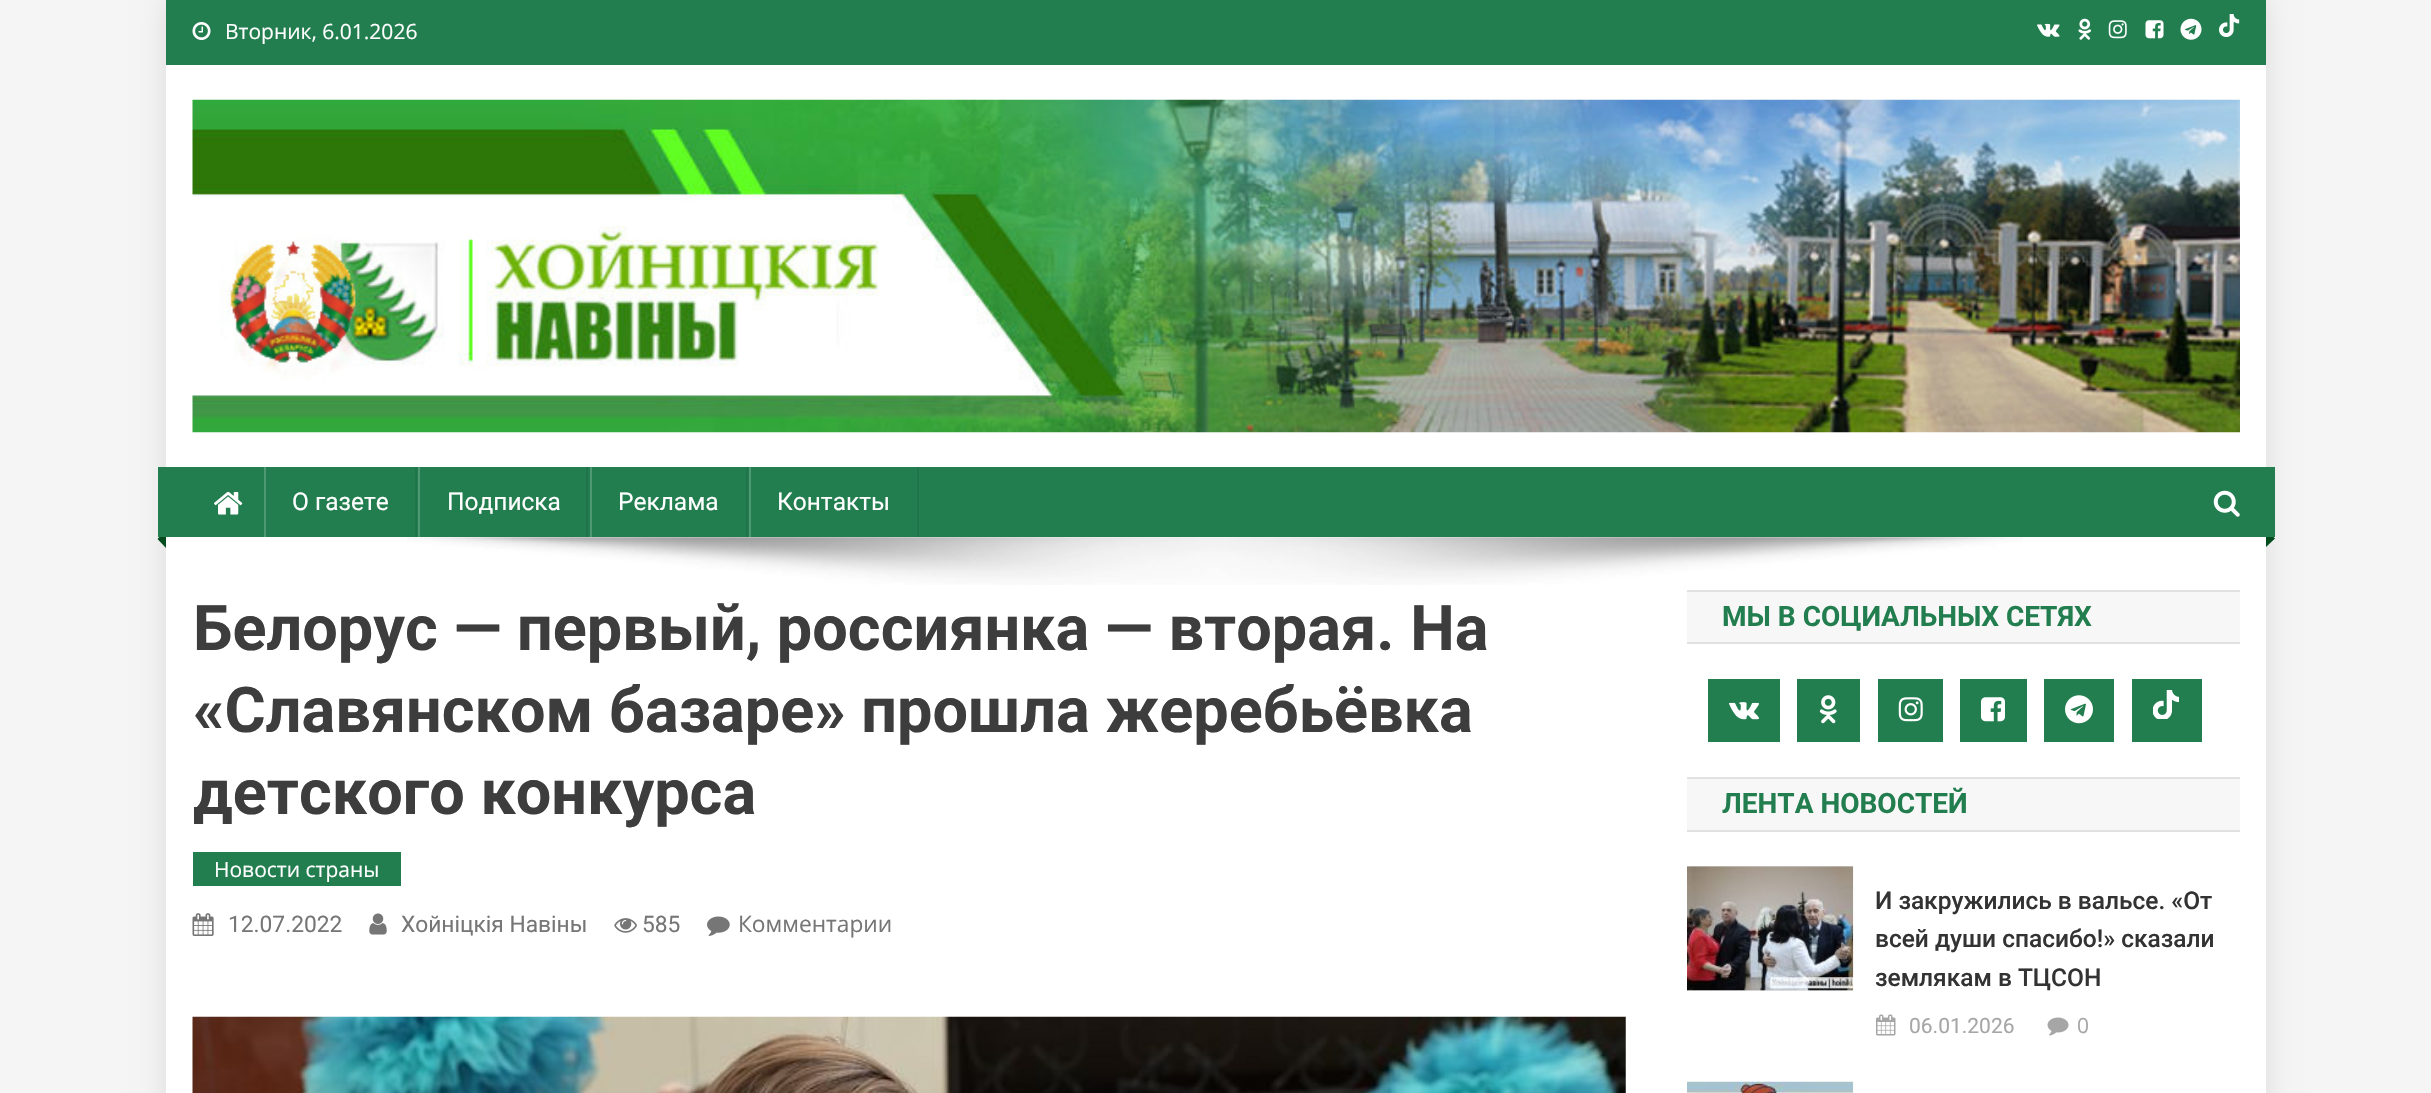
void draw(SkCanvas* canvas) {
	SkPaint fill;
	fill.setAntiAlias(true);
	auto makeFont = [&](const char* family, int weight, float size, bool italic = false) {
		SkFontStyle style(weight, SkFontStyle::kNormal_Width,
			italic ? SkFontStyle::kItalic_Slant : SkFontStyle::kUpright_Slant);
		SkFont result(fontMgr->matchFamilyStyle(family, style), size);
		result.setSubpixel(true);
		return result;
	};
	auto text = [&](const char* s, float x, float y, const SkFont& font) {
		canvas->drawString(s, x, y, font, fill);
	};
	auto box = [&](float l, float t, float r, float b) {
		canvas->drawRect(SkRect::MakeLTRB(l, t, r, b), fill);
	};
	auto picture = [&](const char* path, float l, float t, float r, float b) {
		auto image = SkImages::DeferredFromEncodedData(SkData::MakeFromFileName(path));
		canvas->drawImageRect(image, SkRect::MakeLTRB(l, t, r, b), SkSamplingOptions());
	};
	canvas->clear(0xFFF5F5F5);
	fill.setColor(0x1A000000);
	fill.setMaskFilter(SkMaskFilter::MakeBlur(kNormal_SkBlurStyle, 13));
	canvas->drawRect(SkRect::MakeLTRB(166, 0, 2266, 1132), fill);
	fill.setMaskFilter(nullptr);
	fill.setColor(0xFFFFFFFF);
	box(166, 65, 2266, 1093);
	fill.setColor(0xFF227E4F);
	box(166, 0, 2266, 65);
	picture("image0.png", 192, 22, 211, 40);
	picture("image1.png", 2037, 23, 2060, 37);
	picture("image2.png", 2078, 18, 2091, 40);
	picture("image3.png", 2108, 20, 2127, 39);
	picture("image4.png", 2145, 20, 2164, 39);
	picture("image5.png", 2180, 18, 2202, 40);
	picture("image6.png", 2219, 14, 2240, 37);
	picture("image7.png", 192, 99, 2240, 433);
	box(166, 467, 2266, 537);
	fill.setColor(0xFF004C1D);
	canvas->drawPath(SkPathBuilder().moveTo(166, 530).lineTo(166, 548).lineTo(157.5f, 539).close().detach(), fill);
	fill.setColor(0xFF227E4F);
	box(158, 467, 166, 537);
	picture("image8.png", 214, 492, 243, 515);
	fill.setColor(0xFF1F7449);
	box(415, 467, 417, 537);
	fill.setColor(0xFF4E9872);
	box(264, 467, 266, 537);
	fill.setColor(0xFF1F7449);
	box(586, 467, 588, 537);
	fill.setColor(0xFF4E9872);
	box(418, 467, 420, 537);
	fill.setColor(0xFF1F7449);
	box(746, 467, 748, 537);
	fill.setColor(0xFF4E9872);
	box(590, 467, 592, 537);
	fill.setColor(0xFF1F7449);
	box(917, 467, 919, 537);
	fill.setColor(0xFF4E9872);
	box(749, 467, 751, 537);
	picture("image9.png", 2213, 490, 2240, 517);
	picture("image10.png", 407, 537, 2023, 585);
	fill.setColor(0xFF004C1D);
	canvas->drawPath(SkPathBuilder().moveTo(2266, 547).lineTo(2266, 529.5f).lineTo(2275, 538.5f).close().detach(), fill);
	fill.setColor(0xFF227E4F);
	box(2266, 467, 2275, 537);
	box(193, 852, 401, 886);
	picture("image11.png", 192, 913, 214, 936);
	picture("image12.png", 369, 913, 387, 935);
	picture("image13.png", 614, 918, 637, 933);
	picture("image14.png", 707, 916, 730, 936);
	picture("image15.png", 192, 1016, 1626, 1093);
	fill.setColor(0xFFF7F7F7);
	box(1687, 592, 2240, 642);
	fill.setColor(0xFFE1E1E1);
	box(1687, 590, 2240, 592);
	box(1687, 642, 2240, 644);
	fill.setColor(0xFF227E4F);
	box(1708, 679, 1780, 742);
	picture("image16.png", 1729, 702, 1759, 720);
	box(1797, 679, 1860, 742);
	picture("image17.png", 1819, 695, 1837, 724);
	box(1878, 679, 1943, 742);
	picture("image18.png", 1898, 697, 1923, 722);
	box(1960, 679, 2027, 742);
	picture("image19.png", 1981, 697, 2005, 722);
	box(2044, 679, 2114, 742);
	picture("image20.png", 2065, 695, 2093, 724);
	box(2132, 679, 2202, 742);
	picture("image21.png", 2153, 690, 2179, 719);
	fill.setColor(0xFFF7F7F7);
	box(1687, 779, 2240, 830);
	fill.setColor(0xFFE1E1E1);
	box(1687, 777, 2240, 779);
	box(1687, 830, 2240, 832);
	fill.setColor(0xFFE5E5E5);
	box(1687, 866, 1853, 991);
	picture("image22.png", 1687, 866, 1854, 991);
	picture("image23.png", 1876, 1014, 1896, 1036);
	picture("image24.png", 2047, 1017, 2069, 1036);
	picture("image25.png", 1687, 1081, 1854, 1093);
	auto font1 = makeFont("Open Sans", 400, 21);
	fill.setColor(0xFFFFFFFF);
	text("Вторник, 6.01.2026", 225, 39, font1);
	auto font2 = makeFont("Roboto", 400, 24.5f);
	text("О газете", 292, 510, font2);
	text("Подписка", 447, 510, font2);
	text("Реклама", 618, 510, font2);
	text("Контакты", 777, 510, font2);
	auto font3 = makeFont("Roboto", 700, 63);
	fill.setColor(0xFF3D3D3D);
	text("Белорус — первый, россиянка — вторая. На", 193, 650, font3);
	text("«Славянском базаре» прошла жеребьёвка", 193, 732, font3);
	text("детского конкурса", 193, 814, font3);
	fill.setColor(0xFFFFFFFF);
	text("Новости страны", 214, 877, font1);
	auto font4 = makeFont("Roboto", 400, 22.75f);
	fill.setColor(0xFF767676);
	text("12.07.2022", 228, 932, font4);
	text("Хойнiцкiя Навiны", 401, 932, font4);
	text("585", 642, 932, font4);
	auto font5 = makeFont("Open Sans", 400, 22.75f);
	text("Комментарии", 738, 932, font5);
	auto font6 = makeFont("Roboto", 700, 28);
	fill.setColor(0xFF227E4F);
	text("МЫ В СОЦИАЛЬНЫХ СЕТЯХ", 1722, 626, font6);
	text("ЛЕНТА НОВОСТЕЙ", 1722, 813, font6);
	auto font7 = makeFont("Roboto", 500, 24.5f);
	fill.setColor(0xFF333333);
	text("И закружились в вальсе. «От", 1875, 909, font7);
	text("всей души спасибо!» сказали", 1875, 947, font7);
	text("землякам в ТЦСОН", 1875, 986, font7);
	auto font8 = makeFont("Roboto", 400, 21);
	fill.setColor(0xFFA6A6A6);
	text("06.01.2026", 1909, 1033, font8);
	text("0", 2077, 1033, font1);
}
